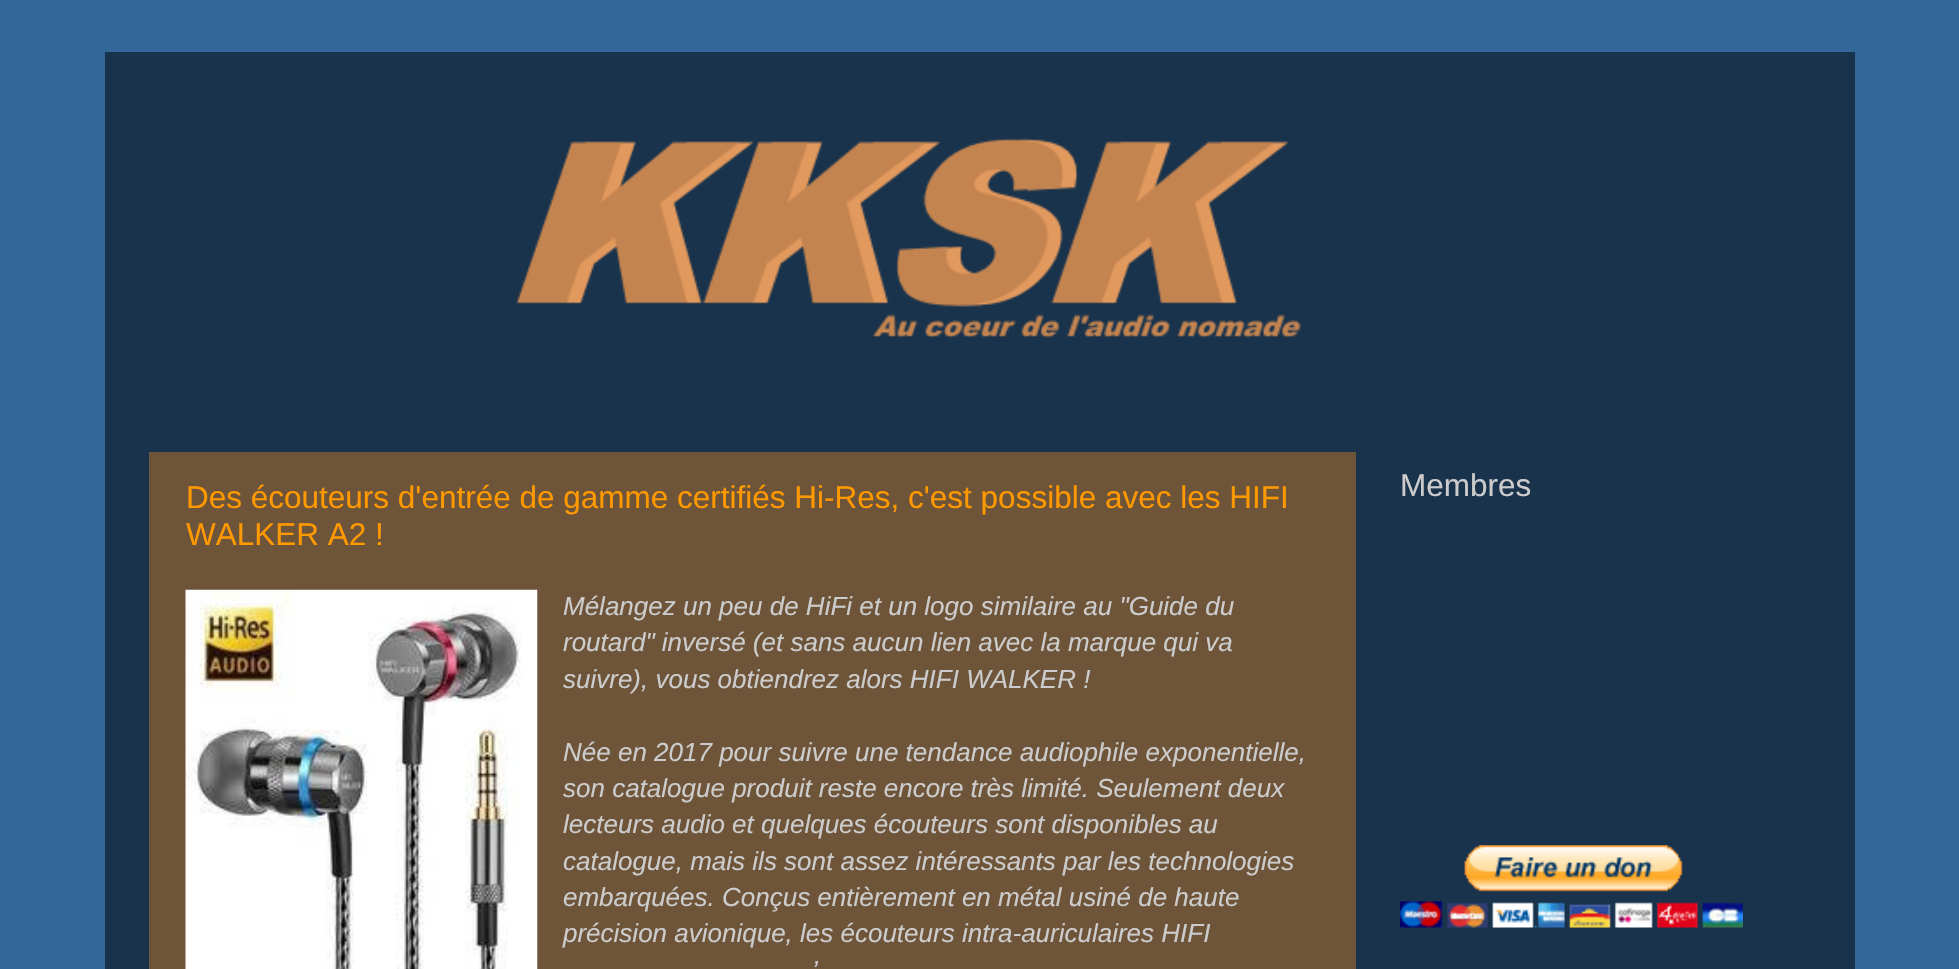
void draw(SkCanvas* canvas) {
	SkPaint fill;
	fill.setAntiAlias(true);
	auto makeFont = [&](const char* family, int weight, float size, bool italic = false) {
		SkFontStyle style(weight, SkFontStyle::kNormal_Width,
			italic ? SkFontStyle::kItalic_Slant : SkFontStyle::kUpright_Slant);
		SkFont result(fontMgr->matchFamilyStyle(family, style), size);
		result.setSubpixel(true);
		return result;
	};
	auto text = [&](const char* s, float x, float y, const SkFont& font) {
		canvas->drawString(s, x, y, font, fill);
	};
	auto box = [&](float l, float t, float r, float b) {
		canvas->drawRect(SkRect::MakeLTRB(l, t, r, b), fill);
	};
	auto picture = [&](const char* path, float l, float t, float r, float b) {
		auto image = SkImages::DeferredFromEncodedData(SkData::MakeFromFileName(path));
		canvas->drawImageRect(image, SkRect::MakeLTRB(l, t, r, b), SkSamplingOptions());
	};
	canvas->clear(0xFF336699);
	fill.setColor(0x80000000);
	box(105, 52, 1855, 969);
	picture("image0.png", 516, 138, 1301, 338);
	fill.setColor(0xFF6E5439);
	box(149, 452, 1356, 969);
	picture("image1.png", 185, 589, 538, 969);
	picture("image2.png", 1400, 845, 1743, 928);
	auto font1 = makeFont("Liberation Sans", 400, 31.5f);
	fill.setColor(0xFFFF9900);
	text("Des écouteurs d'entrée de gamme certifiés Hi-Res, c'est possible avec les HIFI", 186, 508, font1);
	text("WALKER A2 !", 186, 545, font1);
	auto font2 = makeFont("Liberation Sans", 400, 26, true);
	fill.setColor(0xFFCCCCCC);
	text("Mélangez un peu de HiFi et un logo similaire au \"Guide du", 563, 615, font2);
	text("routard\" inversé (et sans aucun lien avec la marque qui va", 563, 651, font2);
	text("suivre), vous obtiendrez alors HIFI WALKER !", 563, 688, font2);
	text("Née en 2017 pour suivre une tendance audiophile exponentielle,", 563, 761, font2);
	text("son catalogue produit reste encore très limité. Seulement deux", 563, 797, font2);
	text("lecteurs audio et quelques écouteurs sont disponibles au", 563, 833, font2);
	text("catalogue, mais ils sont assez intéressants par les technologies", 563, 870, font2);
	text("embarquées. Conçus entièrement en métal usiné de haute", 563, 906, font2);
	text("précision avionique, les écouteurs intra-auriculaires HIFI", 563, 942, font2);
	text("’", 812, 979, font2);
	text("Membres", 1400, 496, font1);
}
